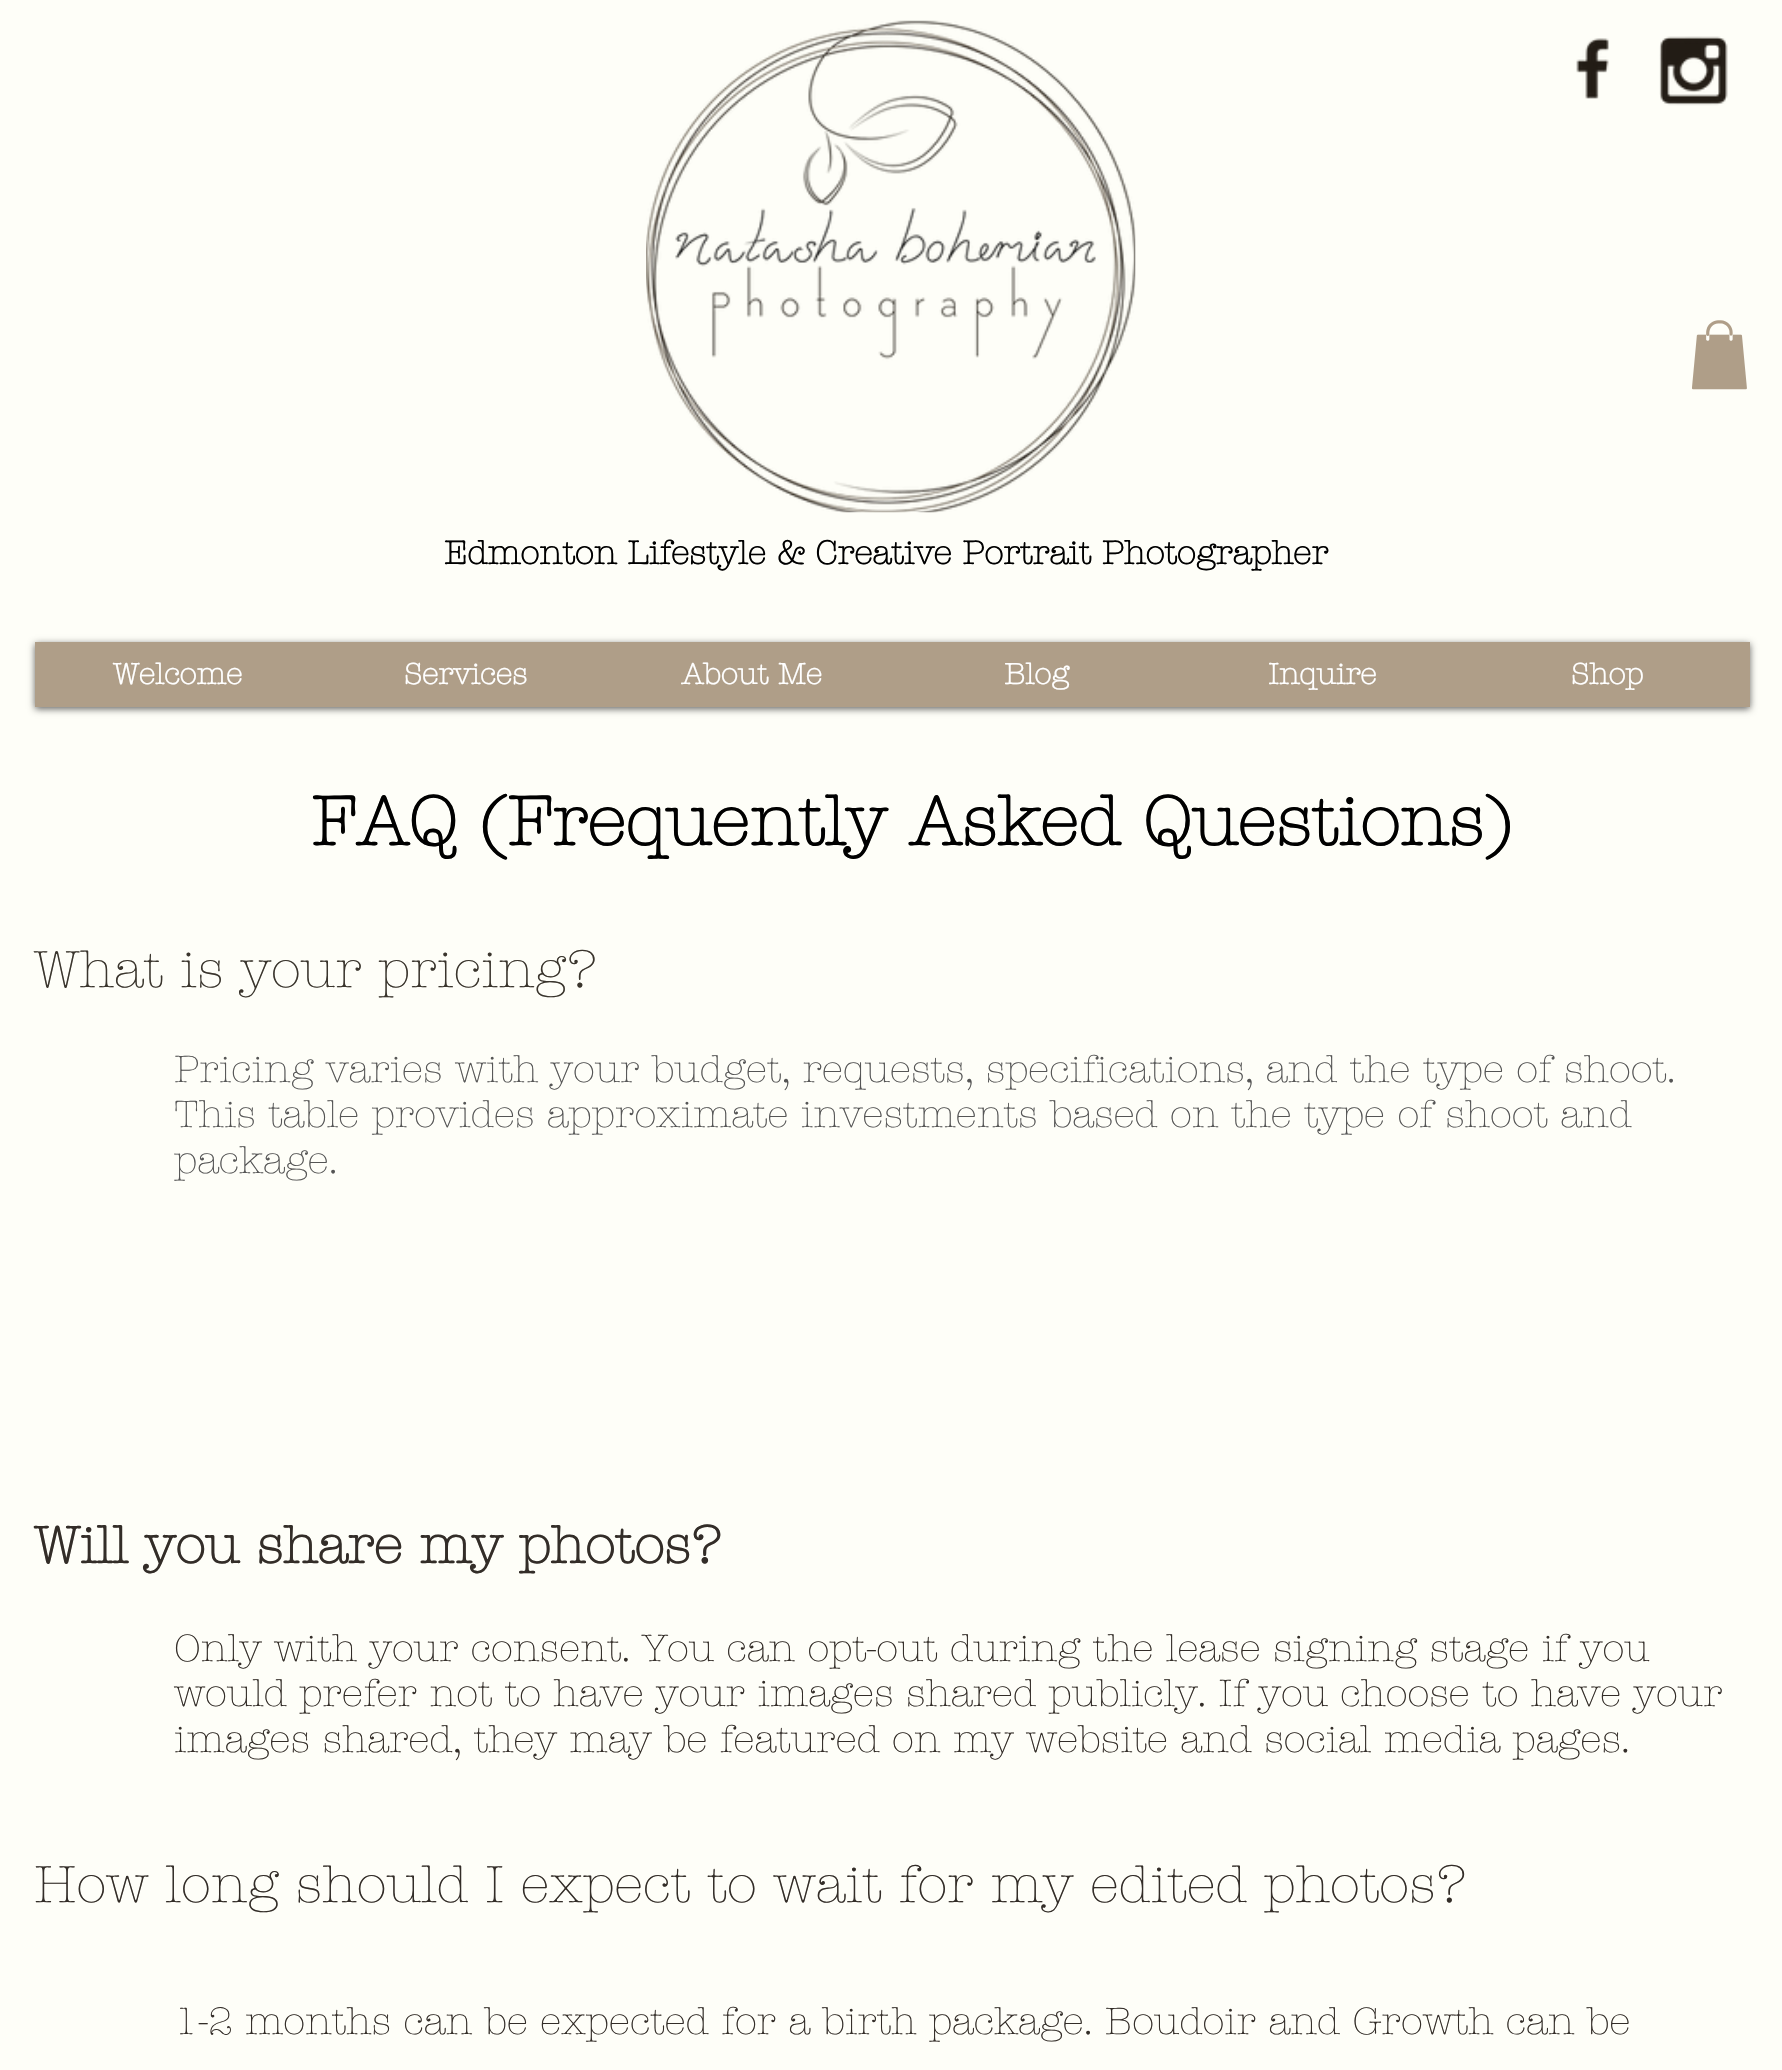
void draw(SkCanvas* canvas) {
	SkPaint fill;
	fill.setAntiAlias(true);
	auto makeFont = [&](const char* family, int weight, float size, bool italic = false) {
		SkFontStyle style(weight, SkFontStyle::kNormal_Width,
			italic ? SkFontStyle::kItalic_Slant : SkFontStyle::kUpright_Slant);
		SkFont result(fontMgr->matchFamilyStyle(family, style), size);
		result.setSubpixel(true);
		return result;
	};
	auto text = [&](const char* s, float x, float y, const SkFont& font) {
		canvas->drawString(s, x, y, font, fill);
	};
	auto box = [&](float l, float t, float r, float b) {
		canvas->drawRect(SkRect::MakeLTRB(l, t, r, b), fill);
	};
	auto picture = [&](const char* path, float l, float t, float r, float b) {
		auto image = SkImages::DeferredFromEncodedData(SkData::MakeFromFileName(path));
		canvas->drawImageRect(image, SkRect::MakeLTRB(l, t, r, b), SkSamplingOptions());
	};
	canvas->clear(0xFFFEFEF8);
	picture("image0.png", 646, 20, 1136, 513);
	picture("image1.png", 1576, 38, 1609, 99);
	picture("image2.png", 1659, 36, 1728, 106);
	picture("image3.png", 1692, 320, 1747, 390);
	fill.setColor(0x99000000);
	fill.setMaskFilter(SkMaskFilter::MakeBlur(kNormal_SkBlurStyle, 3.5f));
	canvas->drawRect(SkRect::MakeLTRB(35, 644, 1750, 709), fill);
	fill.setMaskFilter(nullptr);
	fill.setColor(0xFFAF9E88);
	box(35, 642, 1750, 707);
	auto font1 = makeFont("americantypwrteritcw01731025", 700, 33.25f);
	fill.setColor(0xFF000000);
	text("Edmonton Lifestyle & Creative Portrait Photographer", 444, 564, font1);
	auto font2 = makeFont("americantypwrteritcw01731025", 700, 29.75f);
	fill.setColor(0xFFFFFFFF);
	text("Welcome", 113, 684, font2);
	text("Services", 404, 684, font2);
	text("About Me", 681, 684, font2);
	text("Blog", 1004, 684, font2);
	text("Inquire", 1268, 684, font2);
	text("Shop", 1571, 684, font2);
	auto font3 = makeFont("americantypwrteritcw01731025", 700, 70);
	fill.setColor(0xFF000000);
	text("FAQ (Frequently Asked Questions)", 311, 845, font3);
	auto font4 = makeFont("americantypwrteritcw01731025", 300, 52.5f);
	fill.setColor(0xFF3A352D);
	text("What is your pricing?", 34, 987, font4);
	auto font5 = makeFont("americantypwrteritcw01731025", 300, 38.5f);
	fill.setColor(0xFF555555);
	text("Pricing varies with your budget, requests, specifications, and the type of shoot.", 174, 1082, font5);
	text("This table provides approximate investments based on the type of shoot and", 174, 1127, font5);
	text("package.", 174, 1173, font5);
	auto font6 = makeFont("americantypwrteritcw01731025", 700, 52.5f);
	fill.setColor(0xFF332D28);
	text("Will you share my photos?", 34, 1563, font6);
	text("Only with your consent. You can opt-out during the lease signing stage if you", 174, 1661, font5);
	text("would prefer not to have your images shared publicly. If you choose to have your", 174, 1706, font5);
	text("images shared, they may be featured on my website and social media pages.", 174, 1752, font5);
	text("How long should I expect to wait for my edited photos?", 34, 1902, font4);
	text("1-2 months can be expected for a birth package. Boudoir and Growth can be", 174, 2034, font5);
}
